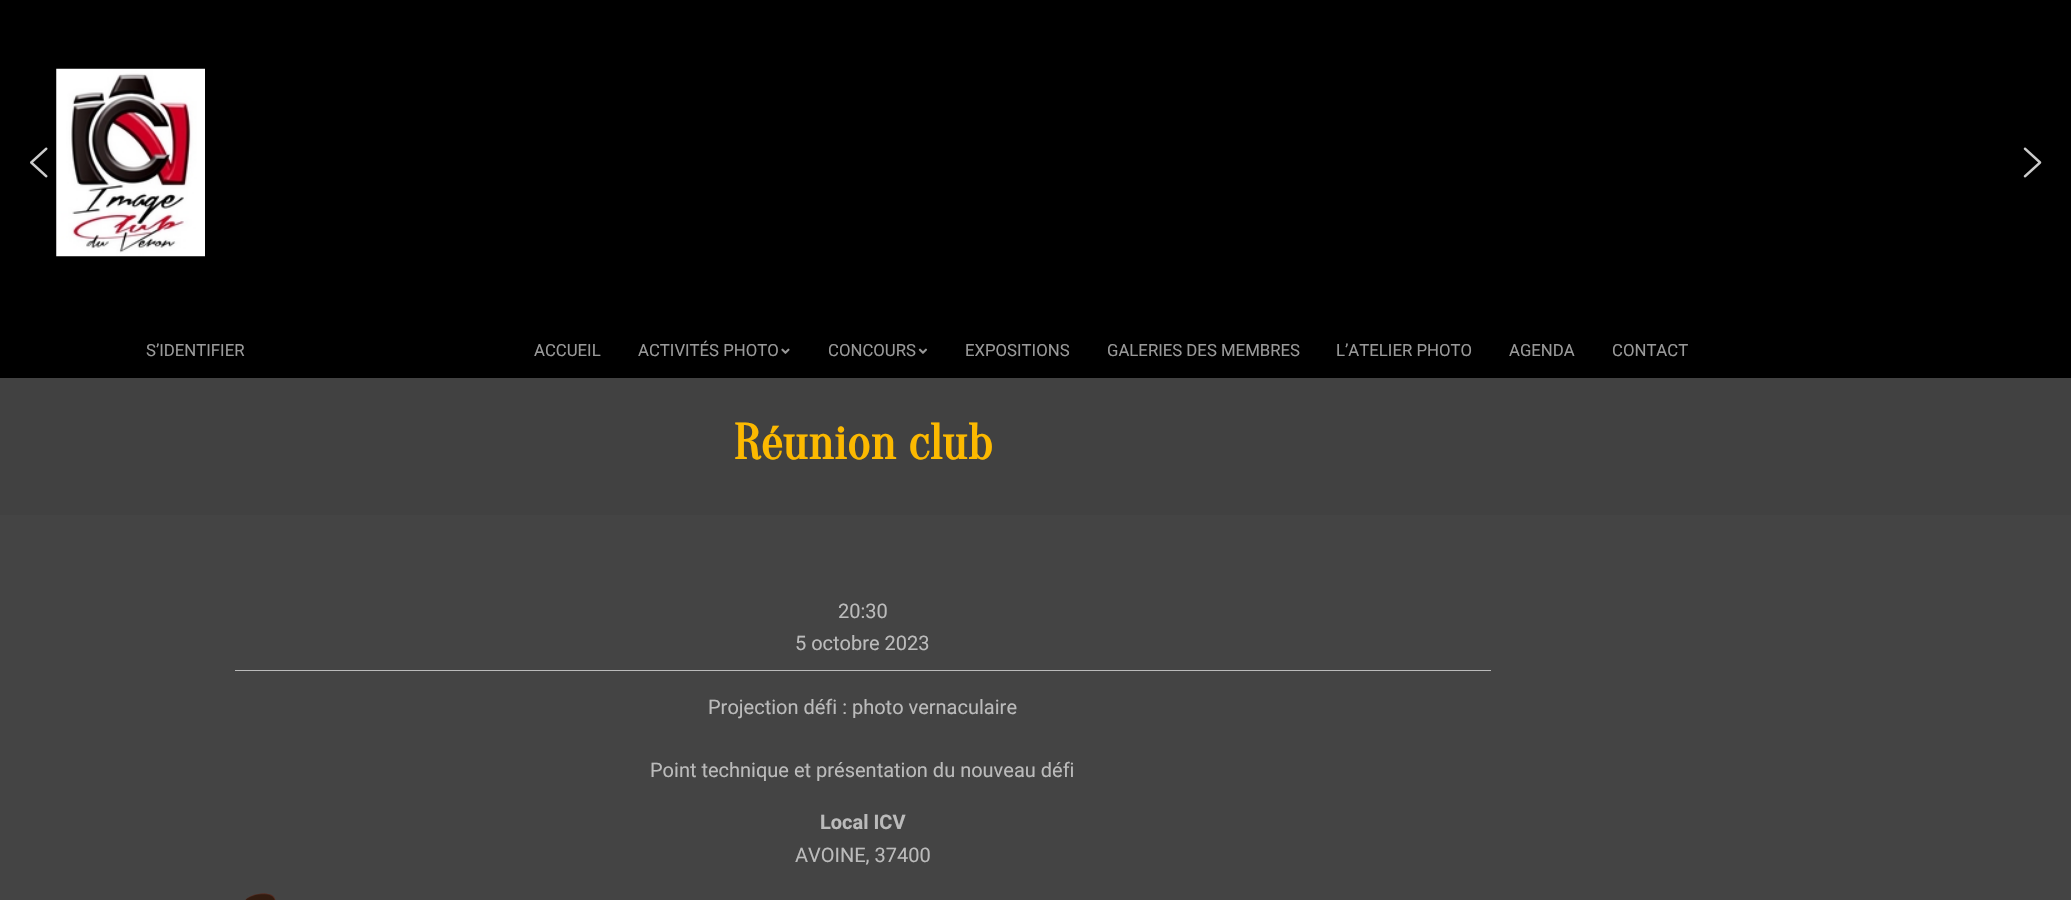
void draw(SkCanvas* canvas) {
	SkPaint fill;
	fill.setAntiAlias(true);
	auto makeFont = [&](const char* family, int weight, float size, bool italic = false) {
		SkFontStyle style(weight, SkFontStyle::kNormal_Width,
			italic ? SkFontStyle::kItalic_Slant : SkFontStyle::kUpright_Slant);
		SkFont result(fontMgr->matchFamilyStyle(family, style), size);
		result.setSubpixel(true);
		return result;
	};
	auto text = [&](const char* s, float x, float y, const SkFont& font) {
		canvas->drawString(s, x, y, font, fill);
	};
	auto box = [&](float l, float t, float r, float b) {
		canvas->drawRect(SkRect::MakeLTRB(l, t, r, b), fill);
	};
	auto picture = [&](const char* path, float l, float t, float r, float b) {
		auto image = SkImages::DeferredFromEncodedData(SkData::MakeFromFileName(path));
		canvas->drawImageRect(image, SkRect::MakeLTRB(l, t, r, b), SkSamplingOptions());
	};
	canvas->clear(0xFF000000);
	picture("image0.png", 56, 68, 205, 257);
	picture("image1.png", 30, 147, 48, 178);
	picture("image2.png", 2023, 147, 2042, 178);
	picture("image3.png", 781, 348, 790, 354);
	picture("image4.png", 918, 348, 928, 354);
	fill.setColor(0xFF444444);
	box(0, 515, 2071, 900);
	fill.setColor(0xFF414141);
	box(0, 378, 2071, 515);
	fill.setColor(0xFFBBBBBB);
	box(235, 670, 1491, 671);
	picture("image5.png", 245, 893, 276, 900);
	auto font1 = makeFont("Roboto", 400, 16.75f);
	fill.setColor(0xFF999999);
	text("S’IDENTIFIER", 146, 356, font1);
	text("ACCUEIL", 534, 356, font1);
	text("ACTIVITÉS PHOTO", 638, 356, font1);
	text("CONCOURS", 828, 356, font1);
	text("EXPOSITIONS", 965, 356, font1);
	text("GALERIES DES MEMBRES", 1107, 356, font1);
	text("L’ATELIER PHOTO", 1336, 356, font1);
	text("AGENDA", 1509, 356, font1);
	text("CONTACT", 1612, 356, font1);
	auto font2 = makeFont("Oranienbaum", 700, 50);
	fill.setColor(0xFFFCB900);
	text("Réunion club", 733, 459, font2);
	auto font3 = makeFont("Roboto", 400, 20);
	fill.setColor(0xFFBBBBBB);
	text("20:30", 838, 618, font3);
	text("5 octobre 2023", 795, 650, font3);
	text("Projection défi : photo vernaculaire", 708, 714, font3);
	text("Point technique et présentation du nouveau défi", 650, 777, font3);
	auto font4 = makeFont("Roboto", 700, 20);
	text("Local ICV", 820, 829, font4);
	text("AVOINE, 37400", 795, 862, font3);
}
